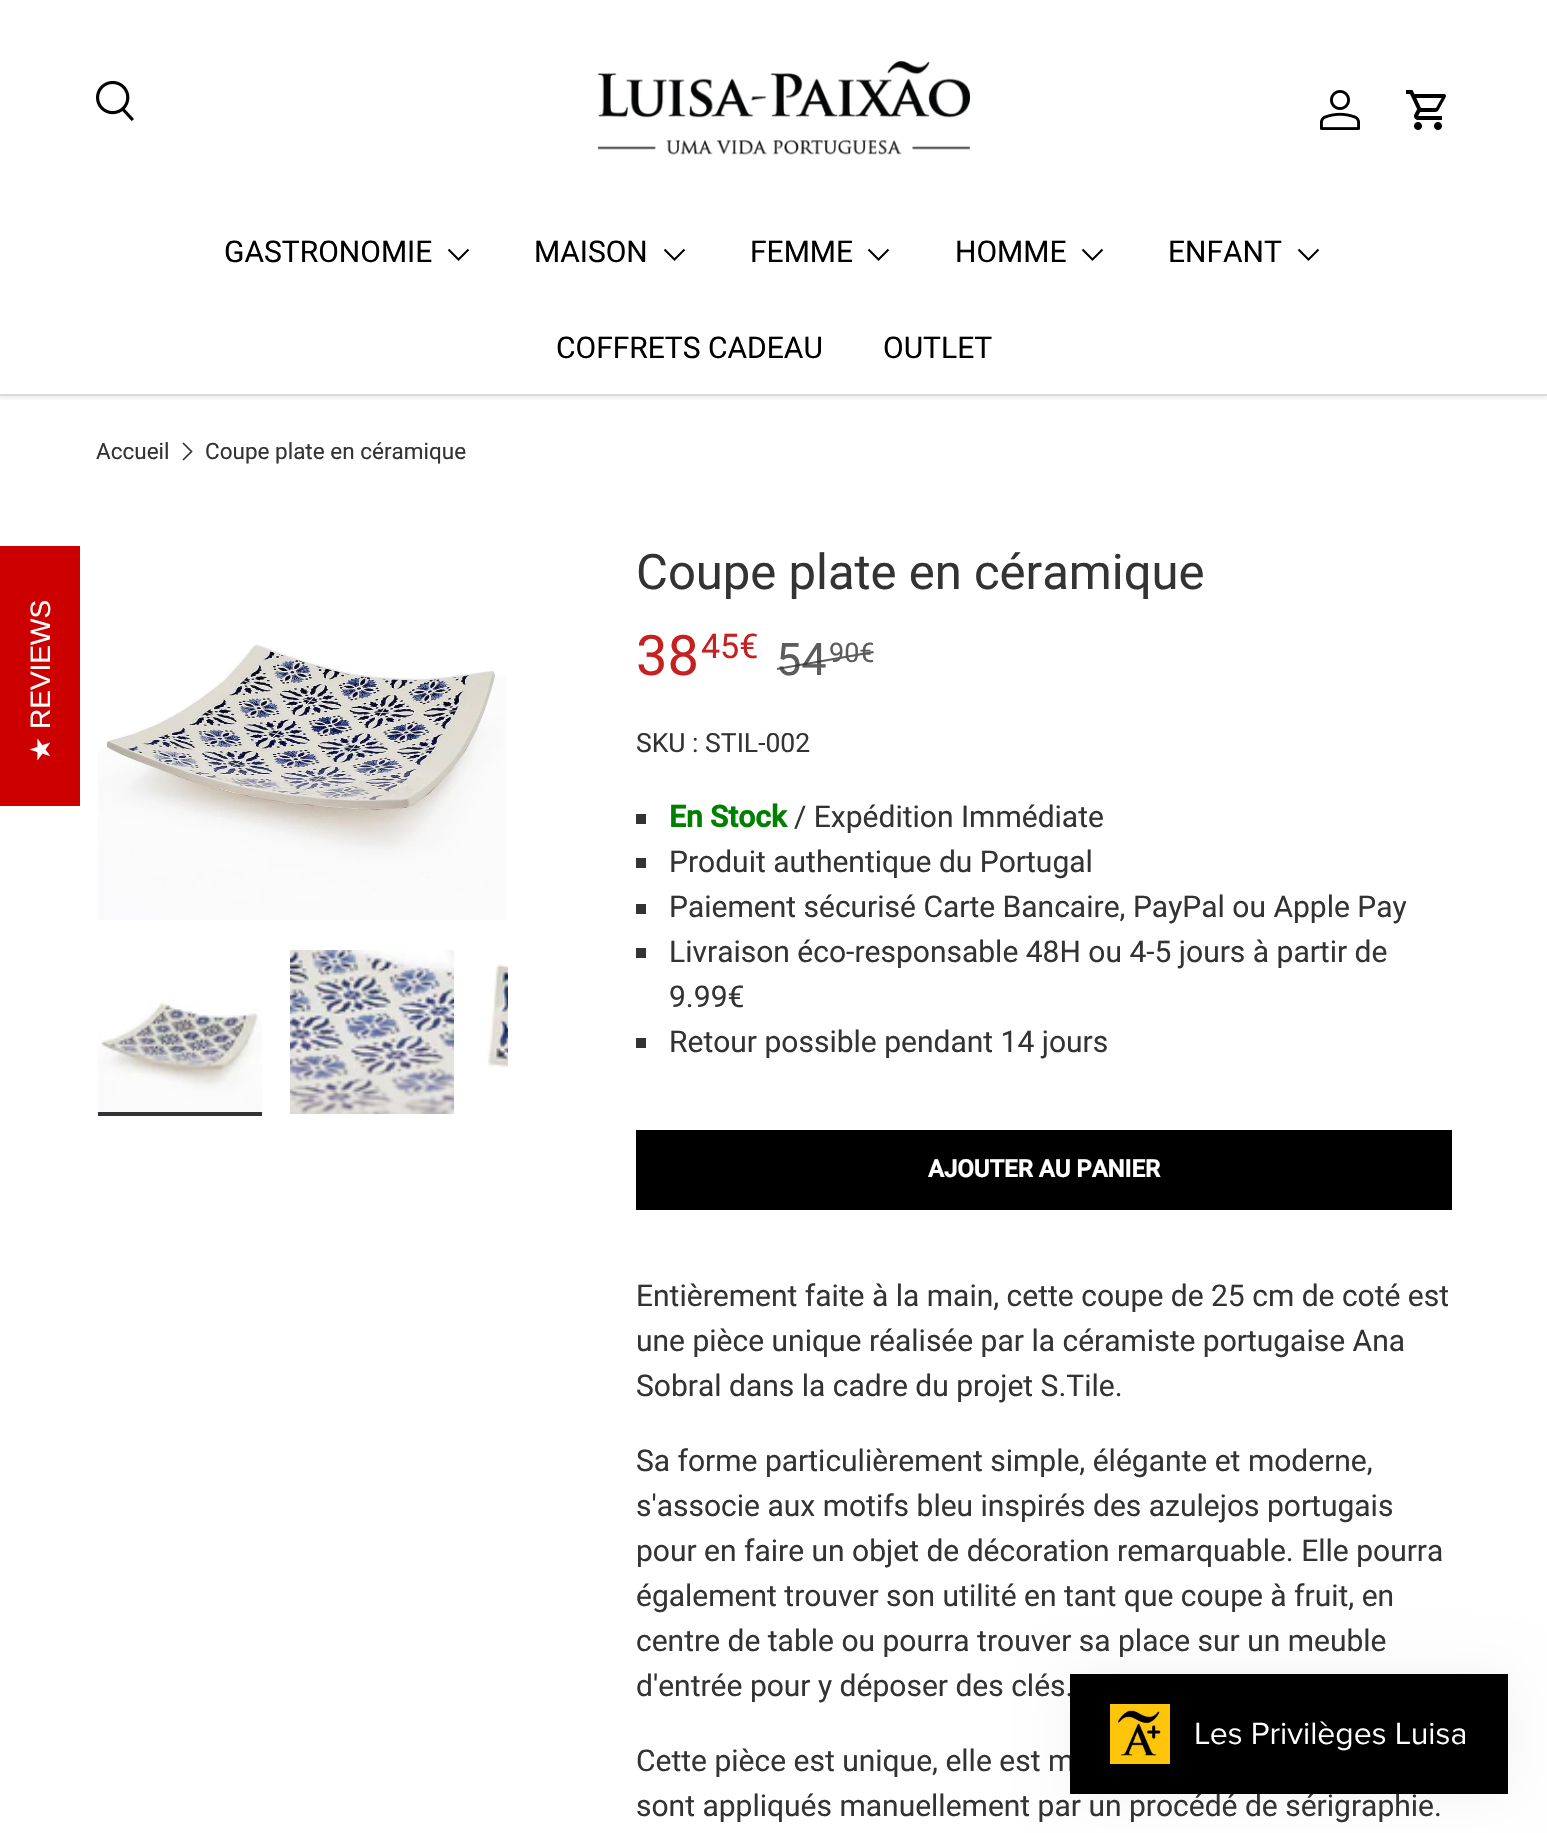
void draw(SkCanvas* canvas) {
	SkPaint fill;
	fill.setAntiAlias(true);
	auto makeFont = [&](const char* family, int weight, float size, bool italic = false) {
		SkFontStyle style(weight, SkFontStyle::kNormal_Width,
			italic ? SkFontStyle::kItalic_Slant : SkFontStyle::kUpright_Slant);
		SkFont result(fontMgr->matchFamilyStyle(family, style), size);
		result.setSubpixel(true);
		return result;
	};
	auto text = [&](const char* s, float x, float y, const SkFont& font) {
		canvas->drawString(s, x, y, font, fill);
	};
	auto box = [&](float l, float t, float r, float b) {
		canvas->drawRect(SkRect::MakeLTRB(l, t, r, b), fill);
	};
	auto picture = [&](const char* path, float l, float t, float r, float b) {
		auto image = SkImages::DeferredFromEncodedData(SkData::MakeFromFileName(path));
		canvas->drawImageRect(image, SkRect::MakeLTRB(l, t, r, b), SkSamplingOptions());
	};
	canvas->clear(0xFFFFFFFF);
	canvas->save();
	canvas->clipRect(SkRect::MakeLTRB(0, 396, 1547, 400));
	fill.setColor(0x14000000);
	fill.setMaskFilter(SkMaskFilter::MakeBlur(kNormal_SkBlurStyle, 3));
	canvas->drawRect(SkRect::MakeLTRB(-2, -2, 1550, 398), fill);
	fill.setMaskFilter(nullptr);
	canvas->restore();
	picture("image0.png", 96, 80, 134, 121);
	picture("image1.png", 598, 61, 970, 155);
	picture("image2.png", 1320, 90, 1360, 130);
	picture("image3.png", 1406, 90, 1446, 130);
	fill.setStyle(SkPaint::kStroke_Style);
	fill.setStrokeWidth(2);
	fill.setColor(0xFF000000);
	canvas->drawPath(SkPathBuilder().moveTo(468.5f, 249.5f).lineTo(458.5f, 259.5f).lineTo(448.5f, 249.5f).detach(), fill);
	canvas->drawPath(SkPathBuilder().moveTo(684.5f, 249.5f).lineTo(674.5f, 259.5f).lineTo(664.5f, 249.5f).detach(), fill);
	canvas->drawPath(SkPathBuilder().moveTo(888.5f, 249.5f).lineTo(878.5f, 259.5f).lineTo(868.5f, 249.5f).detach(), fill);
	canvas->drawPath(SkPathBuilder().moveTo(1102.5f, 249.5f).lineTo(1092.5f, 259.5f).lineTo(1082.5f, 249.5f).detach(), fill);
	canvas->drawPath(SkPathBuilder().moveTo(1318.5f, 249.5f).lineTo(1308.5f, 259.5f).lineTo(1298.5f, 249.5f).detach(), fill);
	fill.setStyle(SkPaint::kFill_Style);
	fill.setColor(0xFFD9D9D9);
	box(0, 394, 1547, 396);
	fill.setColor(0xFFCC0000);
	box(0, 546, 80, 806);
	fill.setStyle(SkPaint::kStroke_Style);
	fill.setStrokeWidth(1.7f);
	fill.setColor(0xFF333333);
	canvas->drawPath(SkPathBuilder().moveTo(183, 443).lineTo(191.5f, 451.5f).lineTo(183, 460).detach(), fill);
	picture("image4.png", 98, 644, 506, 920);
	picture("image5.png", 98, 999, 262, 1112);
	fill.setStyle(SkPaint::kFill_Style);
	box(98, 1112, 262, 1116);
	picture("image6.png", 290, 950, 454, 1114);
	picture("image7.png", 487, 964, 508, 1068);
	box(636, 814, 646, 824);
	box(636, 858, 646, 868);
	box(636, 904, 646, 914);
	box(636, 948, 646, 958);
	box(636, 1038, 646, 1048);
	{
		const SkColor colors[] = {0xFF2E2E2E, 0xFF000000, 0xFF000000};
		const float stops[] = {0.6f, 0.6f, 1};
		const SkPoint ends[] = {{-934, 880}, {1390, 1460}};
		fill.setShader(SkGradientShader::MakeLinear(ends, colors, stops, 3, SkTileMode::kClamp));
		fill.setAlpha(255);
	}
	box(636, 1130, 1452, 1210);
	fill.setShader(nullptr);
	fill.setColor(0x0D000000);
	fill.setMaskFilter(SkMaskFilter::MakeBlur(kNormal_SkBlurStyle, 25));
	canvas->drawRect(SkRect::MakeLTRB(1070, 1674, 1508, 1794), fill);
	fill.setMaskFilter(nullptr);
	auto font1 = makeFont("Roboto", 400, 30);
	fill.setColor(0xFF000000);
	text("GASTRONOMIE", 224, 262, font1);
	text("MAISON", 534, 262, font1);
	text("FEMME", 750, 262, font1);
	text("HOMME", 955, 262, font1);
	text("ENFANT", 1168, 262, font1);
	text("COFFRETS CADEAU", 556, 358, font1);
	text("OUTLET", 883, 358, font1);
	auto font2 = makeFont("Liberation Sans", 400, 28);
	fill.setColor(0xFFFFFFFF);
	canvas->save();
	canvas->rotate(-90, 50, 729);
	text("REVIEWS", 50, 729, font2);
	canvas->restore();
	auto font3 = makeFont("DejaVu Sans", 400, 28);
	canvas->save();
	canvas->rotate(-90, 50, 762);
	text("★", 50, 762, font3);
	canvas->restore();
	auto font4 = makeFont("Roboto", 400, 22.5f);
	fill.setColor(0xFF333333);
	text("Accueil", 96, 459, font4);
	text("Coupe plate en céramique", 205, 459, font4);
	auto font5 = makeFont("Roboto", 400, 49);
	text("Coupe plate en céramique", 636, 589, font5);
	auto font6 = makeFont("Roboto", 400, 56);
	fill.setColor(0xFFC62020);
	text("38", 636, 675, font6);
	auto font7 = makeFont("Roboto", 400, 34);
	text("45€", 701, 658, font7);
	auto font8 = makeFont("Roboto", 400, 45);
	fill.setColor(0xFF5C5C5C);
	text("54", 776, 675, font8);
	fill.setColor(0xCC333333);
	canvas->drawPath(SkPathBuilder().moveTo(777, 668).lineTo(873, 651).lineTo(874, 653).lineTo(777, 670).close().detach(), fill);
	auto font9 = makeFont("Roboto", 400, 27);
	fill.setColor(0xFF5C5C5C);
	text("90€", 829, 662, font9);
	auto font10 = makeFont("Roboto", 400, 26.5f);
	fill.setColor(0xFF333333);
	text("SKU : STIL-002", 636, 752, font10);
	auto font11 = makeFont("Roboto", 700, 30);
	fill.setColor(0xFF008000);
	text("En Stock", 669, 827, font11);
	fill.setColor(0xFF333333);
	text("/ Expédition Immédiate", 794, 827, font1);
	text("Produit authentique du Portugal", 669, 872, font1);
	text("Paiement sécurisé Carte Bancaire, PayPal ou Apple Pay", 669, 917, font1);
	text("Livraison éco-responsable 48H ou 4-5 jours à partir de", 669, 962, font1);
	text("9.99€", 669, 1007, font1);
	text("Retour possible pendant 14 jours", 669, 1052, font1);
	auto font12 = makeFont("Roboto", 700, 24);
	fill.setColor(0xFFFFFFFF);
	text("AJOUTER AU PANIER", 928, 1177, font12);
	fill.setColor(0xFF333333);
	text("Entièrement faite à la main, cette coupe de 25 cm de coté est", 636, 1306, font1);
	text("une pièce unique réalisée par la céramiste portugaise Ana", 636, 1351, font1);
	text("Sobral dans la cadre du projet S.Tile.", 636, 1396, font1);
	text("Sa forme particulièrement simple, élégante et moderne,", 636, 1471, font1);
	text("s'associe aux motifs bleu inspirés des azulejos portugais", 636, 1516, font1);
	text("pour en faire un objet de décoration remarquable. Elle pourra", 636, 1561, font1);
	text("également trouver son utilité en tant que coupe à fruit, en", 636, 1606, font1);
	text("centre de table ou pourra trouver sa place sur un meuble", 636, 1651, font1);
	text("d'entrée pour y déposer des clés.", 636, 1696, font1);
	text("Cette pièce est unique, elle est m", 636, 1771, font1);
	text("sont appliqués manuellement par un procédé de sérigraphie.", 636, 1816, font1);
	picture("image8.png", 1070, 1674, 1508, 1794);
}
